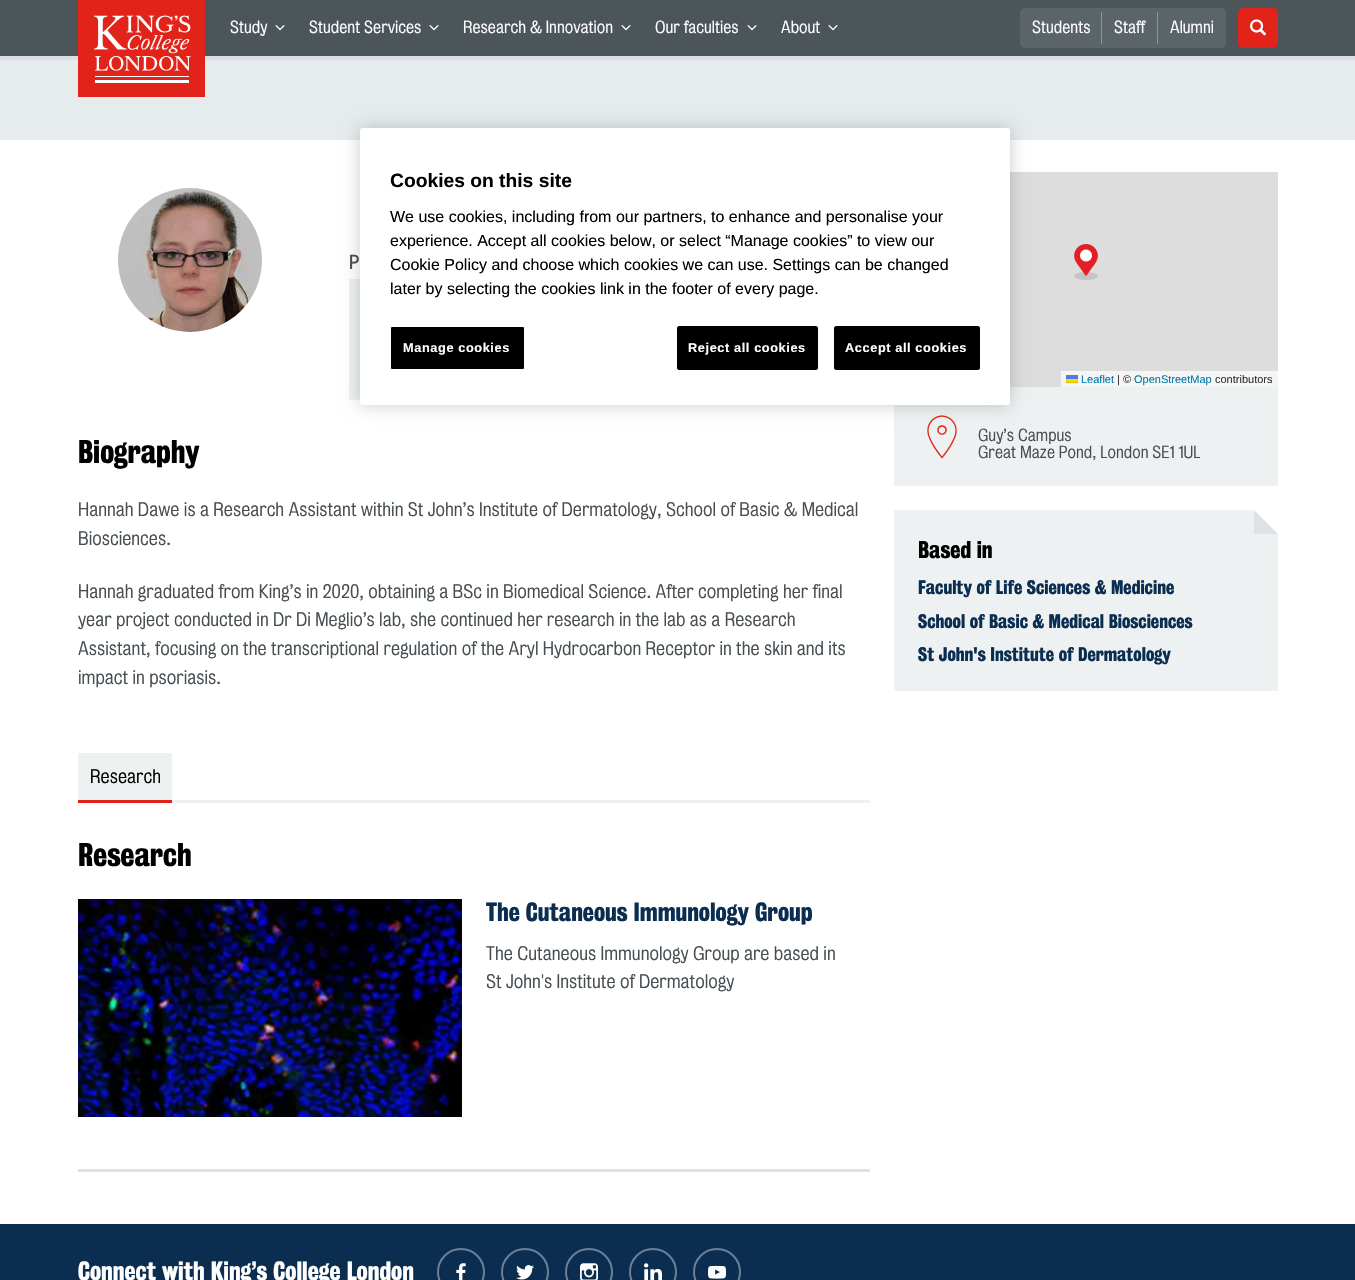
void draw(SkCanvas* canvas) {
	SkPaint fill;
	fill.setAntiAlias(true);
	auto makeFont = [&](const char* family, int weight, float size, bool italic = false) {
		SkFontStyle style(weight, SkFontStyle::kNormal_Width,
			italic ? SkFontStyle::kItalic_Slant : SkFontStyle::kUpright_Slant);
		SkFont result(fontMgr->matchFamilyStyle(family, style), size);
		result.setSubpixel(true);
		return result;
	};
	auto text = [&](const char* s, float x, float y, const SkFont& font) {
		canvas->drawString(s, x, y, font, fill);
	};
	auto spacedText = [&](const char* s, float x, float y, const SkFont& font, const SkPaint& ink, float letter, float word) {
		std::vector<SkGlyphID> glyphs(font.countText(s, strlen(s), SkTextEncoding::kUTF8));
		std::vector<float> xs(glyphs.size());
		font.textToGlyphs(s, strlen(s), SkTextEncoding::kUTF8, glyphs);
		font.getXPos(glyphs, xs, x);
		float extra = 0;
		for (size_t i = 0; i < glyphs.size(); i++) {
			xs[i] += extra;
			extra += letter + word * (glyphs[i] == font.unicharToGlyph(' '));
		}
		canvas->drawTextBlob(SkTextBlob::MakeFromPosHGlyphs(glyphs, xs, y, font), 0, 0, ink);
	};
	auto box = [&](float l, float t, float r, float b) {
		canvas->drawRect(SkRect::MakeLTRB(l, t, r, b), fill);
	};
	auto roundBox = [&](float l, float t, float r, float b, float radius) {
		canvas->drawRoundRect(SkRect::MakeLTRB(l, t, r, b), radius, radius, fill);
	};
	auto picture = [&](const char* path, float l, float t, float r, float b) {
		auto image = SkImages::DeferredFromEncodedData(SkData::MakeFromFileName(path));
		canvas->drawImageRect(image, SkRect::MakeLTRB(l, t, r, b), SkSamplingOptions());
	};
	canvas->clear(0xFFFFFFFF);
	fill.setColor(0xFF4C555A);
	box(0, 0, 1355, 56);
	fill.setColor(0xFFDBDFE1);
	box(0, 56, 1355, 60);
	fill.setColor(0xFFE6EBED);
	box(0, 60, 1355, 140);
	picture("image0.png", 78, 0, 205, 97);
	picture("image1.png", 275, 25, 285, 31);
	picture("image1.png", 429, 25, 439, 31);
	picture("image1.png", 621, 25, 631, 31);
	picture("image1.png", 747, 25, 757, 31);
	picture("image1.png", 828, 25, 838, 31);
	fill.setColor(0xFF5B6469);
	roundBox(1020, 8, 1226, 48, 5);
	fill.setColor(0xFF8C9396);
	box(1101, 12, 1102, 44);
	box(1157, 12, 1158, 44);
	fill.setColor(0xFFE22319);
	roundBox(1238, 8, 1278, 48, 5);
	picture("image2.png", 1250, 19, 1266, 36);
	picture("image3.png", 118, 188, 262, 332);
	fill.setColor(0xFFEDF1F2);
	box(349, 279, 360, 400);
	box(172, 800, 870, 803);
	box(78, 753, 172, 800);
	fill.setColor(0xFFE22319);
	box(78, 800, 172, 803);
	picture("image4.png", 78, 899, 462, 1117);
	fill.setColor(0x33000000);
	box(87, 899, 462, 903);
	fill.setColor(0xFFDCE3E6);
	box(78, 1169, 870, 1172);
	fill.setColor(0xFFDDDDDD);
	box(1010, 172, 1278, 387);
	picture("image5.png", 1074, 244, 1098, 280);
	fill.setColor(0xFFF5F5F5);
	box(1061, 371, 1278, 387);
	fill.setColor(0xFF4C7BE1);
	box(1066, 375, 1078, 379);
	fill.setColor(0xFFFFD500);
	box(1066, 379, 1078, 382);
	fill.setColor(0xFFE0BC00);
	box(1066, 382, 1078, 383);
	fill.setColor(0xFFEDF1F2);
	box(894, 387, 1278, 486);
	picture("image6.png", 927, 415, 957, 459);
	box(894, 510, 1278, 691);
	fill.setColor(0xFFDCE3E6);
	canvas->drawPath(SkPathBuilder().moveTo(1278, 534).lineTo(1254, 534).lineTo(1254, 510).close().detach(), fill);
	fill.setColor(0xFFFFFFFF);
	canvas->drawPath(SkPathBuilder().moveTo(1254, 510).lineTo(1278, 510).lineTo(1278, 534).close().detach(), fill);
	fill.setColor(0xFF0A2D50);
	box(0, 1224, 1355, 1280);
	fill.setStyle(SkPaint::kStroke_Style);
	fill.setStrokeWidth(2);
	fill.setColor(0xFF6C8196);
	canvas->drawCircle(461, 1272, 23, fill);
	picture("image7.png", 456, 1263, 466, 1280);
	canvas->drawCircle(525, 1272, 23, fill);
	picture("image8.png", 516, 1265, 534, 1280);
	canvas->drawCircle(589, 1272, 23, fill);
	picture("image9.png", 580, 1263, 598, 1280);
	canvas->drawCircle(653, 1272, 23, fill);
	picture("image10.png", 644, 1263, 662, 1280);
	canvas->drawCircle(717, 1272, 23, fill);
	picture("image11.png", 708, 1265, 726, 1279);
	fill.setStyle(SkPaint::kFill_Style);
	fill.setColor(0x33000000);
	fill.setMaskFilter(SkMaskFilter::MakeBlur(kNormal_SkBlurStyle, 9));
	canvas->drawRoundRect(SkRect::MakeLTRB(360, 128, 1010, 405), 2.5f, 2.5f, fill);
	fill.setMaskFilter(nullptr);
	fill.setColor(0xFFFFFFFF);
	roundBox(360, 128, 1010, 405, 2.5f);
	fill.setColor(0xFF000000);
	canvas->drawRoundRect(SkRect::MakeLTRB(390.5f, 326.5f, 524.5f, 369.5f), 1.5f, 1.5f, fill);
	fill.setStyle(SkPaint::kStroke_Style);
	fill.setStrokeWidth(1);
	fill.setColor(0xFFFFFFFF);
	canvas->drawRoundRect(SkRect::MakeLTRB(390.5f, 326.5f, 524.5f, 369.5f), 1.5f, 1.5f, fill);
	fill.setStyle(SkPaint::kFill_Style);
	fill.setColor(0xFF000000);
	canvas->drawRoundRect(SkRect::MakeLTRB(677.5f, 326.5f, 817.5f, 369.5f), 1.5f, 1.5f, fill);
	fill.setStyle(SkPaint::kStroke_Style);
	canvas->drawRoundRect(SkRect::MakeLTRB(677.5f, 326.5f, 817.5f, 369.5f), 1.5f, 1.5f, fill);
	fill.setStyle(SkPaint::kFill_Style);
	canvas->drawRoundRect(SkRect::MakeLTRB(834.5f, 326.5f, 979.5f, 369.5f), 1.5f, 1.5f, fill);
	fill.setStyle(SkPaint::kStroke_Style);
	canvas->drawRoundRect(SkRect::MakeLTRB(834.5f, 326.5f, 979.5f, 369.5f), 1.5f, 1.5f, fill);
	auto font1 = makeFont("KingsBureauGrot", 300, 16);
	fill.setStyle(SkPaint::kFill_Style);
	fill.setColor(0xFFFFFFFF);
	text("Study", 230, 33, font1);
	text("Student Services", 309, 33, font1);
	text("Research & Innovation", 463, 33, font1);
	text("Our faculties", 655, 33, font1);
	text("About", 781, 33, font1);
	text("Students", 1032, 33, font1);
	text("Staff", 1114, 33, font1);
	text("Alumni", 1170, 33, font1);
	auto font2 = makeFont("KingsBureauGrot", 700, 18);
	fill.setColor(0xFF464E52);
	text("P", 349, 269, font2);
	auto font3 = makeFont("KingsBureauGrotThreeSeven", 700, 30);
	fill.setColor(0xFF000000);
	text("Biography", 78, 463, font3);
	auto font4 = makeFont("KingsBureauGrot", 300, 18);
	fill.setColor(0xFF464E52);
	text("Hannah Dawe is a Research Assistant within St John’s Institute of Dermatology, School of Basic & Medical", 78, 516, font4);
	text("Biosciences.", 78, 545, font4);
	text("Hannah graduated from King’s in 2020, obtaining a BSc in Biomedical Science. After completing her final", 78, 598, font4);
	text("year project conducted in Dr Di Meglio’s lab, she continued her research in the lab as a Research", 78, 626, font4);
	text("Assistant, focusing on the transcriptional regulation of the Aryl Hydrocarbon Receptor in the skin and its", 78, 655, font4);
	text("impact in psoriasis.", 78, 684, font4);
	fill.setColor(0xFF000000);
	text("Research", 90, 783, font4);
	text("Research", 78, 866, font3);
	auto font5 = makeFont("KingsBureauGrotThreeSeven", 700, 24);
	fill.setColor(0xFF0A2D50);
	text("The Cutaneous Immunology Group", 486, 921, font5);
	fill.setColor(0xFF464E52);
	text("The Cutaneous Immunology Group are based in", 486, 960, font4);
	text("St John's Institute of Dermatology", 486, 988, font4);
	auto font6 = makeFont("Liberation Sans", 400, 11);
	fill.setColor(0xFF0078A8);
	text("Leaflet", 1081, 383, font6);
	fill.setColor(0xFF333333);
	text("| ©", 1117, 383, font6);
	fill.setColor(0xFF0078A8);
	text("OpenStreetMap", 1134, 383, font6);
	fill.setColor(0xFF333333);
	text("contributors", 1215, 383, font6);
	fill.setColor(0xFF464E52);
	text("Guy’s Campus", 978, 441, font1);
	text("Great Maze Pond, London SE1 1UL", 978, 458, font1);
	auto font7 = makeFont("KingsBureauGrotThreeSeven", 700, 22);
	fill.setColor(0xFF000000);
	text("Based in", 918, 558, font7);
	auto font8 = makeFont("KingsBureauGrotThreeSeven", 700, 18);
	fill.setColor(0xFF0A2D50);
	text("Faculty of Life Sciences & Medicine", 918, 594, font8);
	text("School of Basic & Medical Biosciences", 918, 628, font8);
	text("St John's Institute of Dermatology", 918, 661, font8);
	fill.setColor(0xFFFFFFFF);
	text("Connect with King’s College London", 78, 1280, font5);
	auto font9 = makeFont("Liberation Sans", 700, 19.25f);
	fill.setColor(0xFF000000);
	text("Cookies on this site", 390, 187, font9);
	auto font10 = makeFont("Liberation Sans", 400, 16);
	text("We use cookies, including from our partners, to enhance and personalise your", 390, 222, font10);
	text("experience. Accept all cookies below, or select “Manage cookies” to view our", 390, 246, font10);
	text("Cookie Policy and choose which cookies we can use. Settings can be changed", 390, 270, font10);
	text("later by selecting the cookies link in the footer of every page.", 390, 294, font10);
	auto font11 = makeFont("Liberation Sans", 700, 12.75f);
	fill.setColor(0xFFFFFFFF);
	spacedText("Manage cookies", 403, 352, font11, fill, 0.6f, 0);
	spacedText("Reject all cookies", 688, 352, font11, fill, 0.6f, 0);
	spacedText("Accept all cookies", 845, 352, font11, fill, 0.6f, 0);
}
